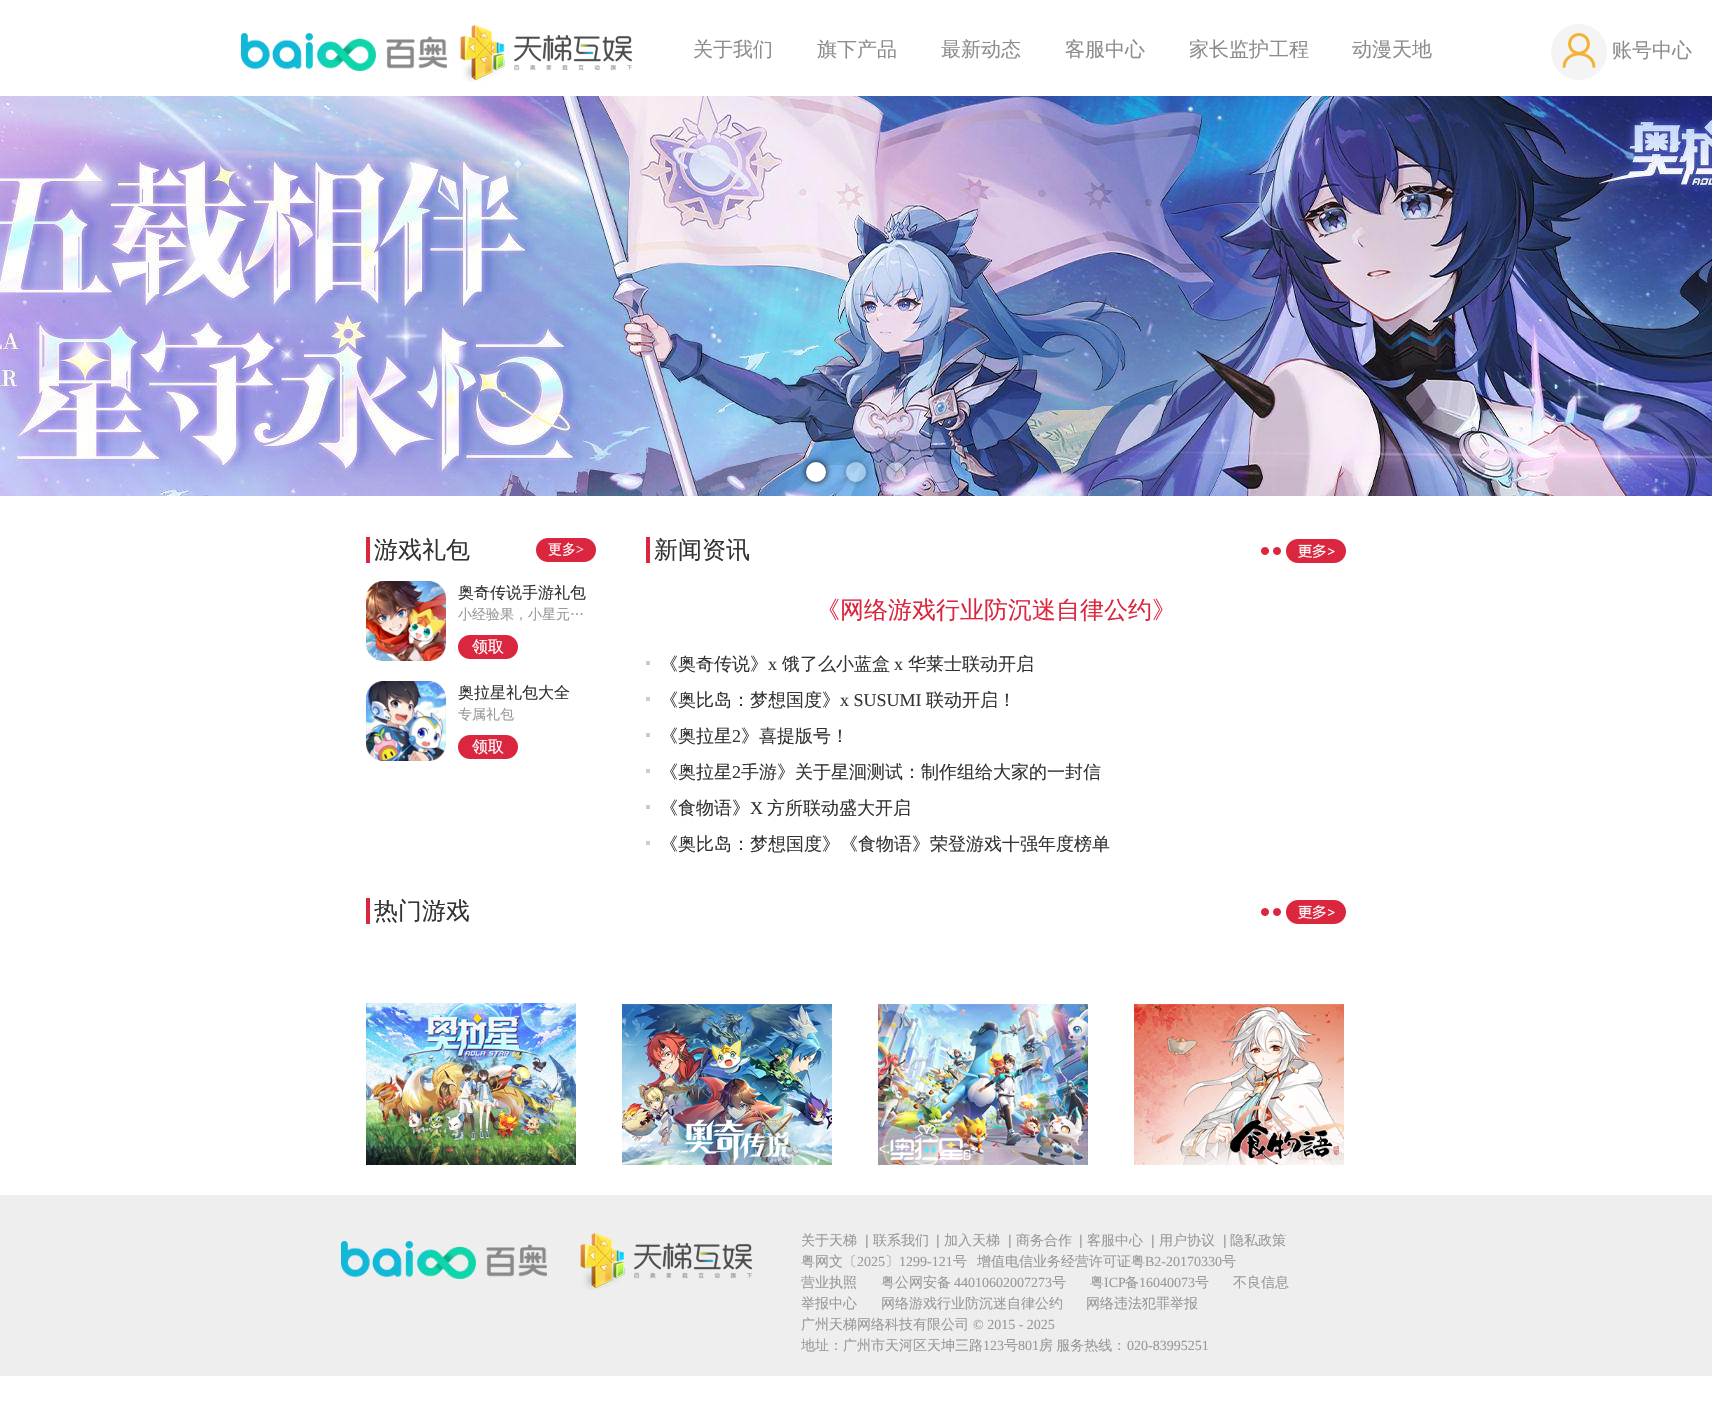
void draw(SkCanvas* canvas) {
	SkPaint fill;
	fill.setAntiAlias(true);
	auto makeFont = [&](const char* family, int weight, float size, bool italic = false) {
		SkFontStyle style(weight, SkFontStyle::kNormal_Width,
			italic ? SkFontStyle::kItalic_Slant : SkFontStyle::kUpright_Slant);
		SkFont result(fontMgr->matchFamilyStyle(family, style), size);
		result.setSubpixel(true);
		return result;
	};
	auto text = [&](const char* s, float x, float y, const SkFont& font) {
		canvas->drawString(s, x, y, font, fill);
	};
	auto spacedText = [&](const char* s, float x, float y, const SkFont& font, const SkPaint& ink, float letter, float word) {
		std::vector<SkGlyphID> glyphs(font.countText(s, strlen(s), SkTextEncoding::kUTF8));
		std::vector<float> xs(glyphs.size());
		font.textToGlyphs(s, strlen(s), SkTextEncoding::kUTF8, glyphs);
		font.getXPos(glyphs, xs, x);
		float extra = 0;
		for (size_t i = 0; i < glyphs.size(); i++) {
			xs[i] += extra;
			extra += letter + word * (glyphs[i] == font.unicharToGlyph(' '));
		}
		canvas->drawTextBlob(SkTextBlob::MakeFromPosHGlyphs(glyphs, xs, y, font), 0, 0, ink);
	};
	auto box = [&](float l, float t, float r, float b) {
		canvas->drawRect(SkRect::MakeLTRB(l, t, r, b), fill);
	};
	auto picture = [&](const char* path, float l, float t, float r, float b) {
		auto image = SkImages::DeferredFromEncodedData(SkData::MakeFromFileName(path));
		canvas->drawImageRect(image, SkRect::MakeLTRB(l, t, r, b), SkSamplingOptions());
	};
	canvas->clear(0xFFFFFFFF);
	picture("image0.png", 241, 33, 447, 71);
	picture("image1.png", 460, 25, 632, 82);
	picture("image2.png", 1551, 24, 1607, 80);
	picture("image3.png", 0, 96, 1712, 496);
	fill.setColor(0xFF000000);
	fill.setMaskFilter(SkMaskFilter::MakeBlur(kNormal_SkBlurStyle, 3.5f));
	canvas->drawRoundRect(SkRect::MakeLTRB(806, 462, 826, 482), 10, 10, fill);
	fill.setMaskFilter(nullptr);
	fill.setColor(0xFFFFFFFF);
	canvas->drawCircle(816, 472, 10, fill);
	canvas->save();
	canvas->clipPath(SkPathBuilder(SkPathFillType::kEvenOdd).moveTo(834, 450).lineTo(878, 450).lineTo(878, 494).lineTo(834, 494).close().moveTo(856, 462).cubicTo(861.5f, 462, 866, 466.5f, 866, 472).cubicTo(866, 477.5f, 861.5f, 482, 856, 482).cubicTo(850.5f, 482, 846, 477.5f, 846, 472).cubicTo(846, 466.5f, 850.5f, 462, 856, 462).close().detach(), true);
	fill.setColor(0x66000000);
	fill.setMaskFilter(SkMaskFilter::MakeBlur(kNormal_SkBlurStyle, 3.5f));
	canvas->drawRoundRect(SkRect::MakeLTRB(846, 462, 866, 482), 10, 10, fill);
	fill.setMaskFilter(nullptr);
	canvas->restore();
	fill.setColor(0x66FFFFFF);
	canvas->drawCircle(856, 472, 10, fill);
	canvas->save();
	canvas->clipPath(SkPathBuilder(SkPathFillType::kEvenOdd).moveTo(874, 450).lineTo(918, 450).lineTo(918, 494).lineTo(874, 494).close().moveTo(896, 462).cubicTo(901.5f, 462, 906, 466.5f, 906, 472).cubicTo(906, 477.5f, 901.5f, 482, 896, 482).cubicTo(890.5f, 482, 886, 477.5f, 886, 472).cubicTo(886, 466.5f, 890.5f, 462, 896, 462).close().detach(), true);
	fill.setColor(0x66000000);
	fill.setMaskFilter(SkMaskFilter::MakeBlur(kNormal_SkBlurStyle, 3.5f));
	canvas->drawRoundRect(SkRect::MakeLTRB(886, 462, 906, 482), 10, 10, fill);
	fill.setMaskFilter(nullptr);
	canvas->restore();
	fill.setColor(0x66FFFFFF);
	canvas->drawCircle(896, 472, 10, fill);
	fill.setColor(0xFFDA273F);
	box(366, 537, 370, 563);
	picture("image4.png", 536, 538, 596, 562);
	picture("image5.png", 366, 581, 446, 661);
	picture("image4.png", 458, 635, 518, 659);
	picture("image6.png", 366, 681, 446, 761);
	picture("image4.png", 458, 735, 518, 759);
	box(646, 537, 650, 563);
	picture("image7.png", 1261, 539, 1346, 563);
	fill.setColor(0xFFCCCCCC);
	box(646, 661, 650, 665);
	box(646, 697, 650, 701);
	box(646, 733, 650, 737);
	box(646, 769, 650, 773);
	box(646, 805, 650, 809);
	box(646, 841, 650, 845);
	fill.setColor(0xFFDA273F);
	box(366, 898, 370, 924);
	picture("image7.png", 1261, 900, 1346, 924);
	picture("image8.png", 366, 1003, 576, 1165);
	picture("image9.png", 622, 1004, 832, 1165);
	picture("image10.png", 878, 1004, 1088, 1165);
	picture("image11.png", 1134, 1004, 1344, 1165);
	fill.setColor(0xFFEEEEEE);
	box(0, 1195, 1712, 1376);
	picture("image12.png", 341, 1241, 547, 1279);
	picture("image13.png", 580, 1233, 752, 1290);
	auto font1 = makeFont("WenQuanYi Zen Hei", 500, 20);
	fill.setColor(0xFF8D8D8D);
	text("关于我们", 693, 56, font1);
	text("旗下产品", 817, 56, font1);
	text("最新动态", 941, 56, font1);
	text("客服中心", 1065, 56, font1);
	text("家长监护工程", 1189, 56, font1);
	text("动漫天地", 1352, 56, font1);
	text("账号中心", 1612, 57, font1);
	auto font2 = makeFont("WenQuanYi Zen Hei", 500, 24);
	fill.setColor(0xFF333333);
	text("游戏礼包", 374, 558, font2);
	auto font3 = makeFont("WenQuanYi Zen Hei", 500, 14);
	fill.setColor(0xFFFFFFFF);
	text("更多", 548, 554, font3);
	auto font4 = makeFont("Liberation Serif", 400, 14);
	text(">", 576, 554, font4);
	auto font5 = makeFont("WenQuanYi Zen Hei", 500, 16);
	fill.setColor(0xFF333333);
	text("奥奇传说手游礼包", 458, 598, font5);
	fill.setColor(0xFF999999);
	text("小经验果，小星元…", 458, 619, font3);
	fill.setColor(0xFFFFFFFF);
	text("领取", 472, 652, font5);
	fill.setColor(0xFF333333);
	text("奥拉星礼包大全", 458, 698, font5);
	fill.setColor(0xFF999999);
	text("专属礼包", 458, 719, font3);
	fill.setColor(0xFFFFFFFF);
	text("领取", 472, 752, font5);
	fill.setColor(0xFF333333);
	text("新闻资讯", 654, 558, font2);
	fill.setColor(0xFFDA273F);
	text("《网络游戏行业防沉迷自律公约》", 816, 618, font2);
	auto font6 = makeFont("WenQuanYi Zen Hei", 500, 18);
	fill.setColor(0xFF333333);
	text("《奥奇传说》", 660, 670, font6);
	auto font7 = makeFont("Liberation Serif", 400, 18);
	text("x", 768, 670, font7);
	text("饿了么小蓝盒", 782, 670, font6);
	text("x", 894, 670, font7);
	text("华莱士联动开启", 908, 670, font6);
	text("《奥比岛：梦想国度》", 660, 706, font6);
	text("x SUSUMI", 840, 706, font7);
	text("联动开启！", 926, 706, font6);
	text("《奥拉星", 660, 742, font6);
	text("2", 732, 742, font7);
	text("》喜提版号！", 741, 742, font6);
	text("《奥拉星", 660, 778, font6);
	text("2", 732, 778, font7);
	text("手游》关于星洄测试：制作组给大家的一封信", 741, 778, font6);
	text("《食物语》", 660, 814, font6);
	text("X", 750, 814, font7);
	text("方所联动盛大开启", 767, 814, font6);
	text("《奥比岛：梦想国度》《食物语》荣登游戏十强年度榜单", 660, 850, font6);
	text("热门游戏", 374, 919, font2);
	fill.setColor(0xFF999999);
	text("关于天梯", 801, 1245, font3);
	auto font8 = makeFont("Liberation Sans", 400, 14);
	text("|", 865, 1245, font8);
	text("联系我们", 873, 1245, font3);
	text("|", 936, 1245, font8);
	text("加入天梯", 944, 1245, font3);
	text("|", 1008, 1245, font8);
	text("商务合作", 1016, 1245, font3);
	text("|", 1079, 1245, font8);
	text("客服中心", 1087, 1245, font3);
	text("|", 1151, 1245, font8);
	text("用户协议", 1159, 1245, font3);
	text("|", 1223, 1245, font8);
	text("隐私政策", 1230, 1245, font3);
	text("粤网文〔", 801, 1266, font3);
	text("2025", 857, 1266, font4);
	text("〕", 885, 1266, font3);
	text("1299-121", 899, 1266, font4);
	text("号", 953, 1266, font3);
	text("增值电信业务经营许可证粤", 977, 1266, font3);
	text("B2-20170330", 1145, 1266, font4);
	text("号", 1222, 1266, font3);
	text("营业执照", 801, 1287, font3);
	text("粤公网安备", 881, 1287, font3);
	text("44010602007273", 954, 1287, font4);
	text("号", 1052, 1287, font3);
	text("粤", 1090, 1287, font3);
	text("ICP", 1104, 1287, font4);
	text("备", 1125, 1287, font3);
	text("16040073", 1139, 1287, font4);
	text("号", 1195, 1287, font3);
	text("不良信息", 1233, 1287, font3);
	text("举报中心", 801, 1308, font3);
	text("网络游戏行业防沉迷自律公约", 881, 1308, font3);
	text("网络违法犯罪举报", 1086, 1308, font3);
	text("广州天梯网络科技有限公司", 801, 1329, font3);
	text("© 2015 - 2025", 973, 1329, font4);
	text("地址：广州市天河区天坤三路", 801, 1350, font3);
	text("123", 983, 1350, font4);
	text("号", 1004, 1350, font3);
	text("801", 1018, 1350, font4);
	spacedText("房 服务热线：", 1039, 1350, font3, fill, 0, -1);
	text("020-83995251", 1127, 1350, font4);
}
